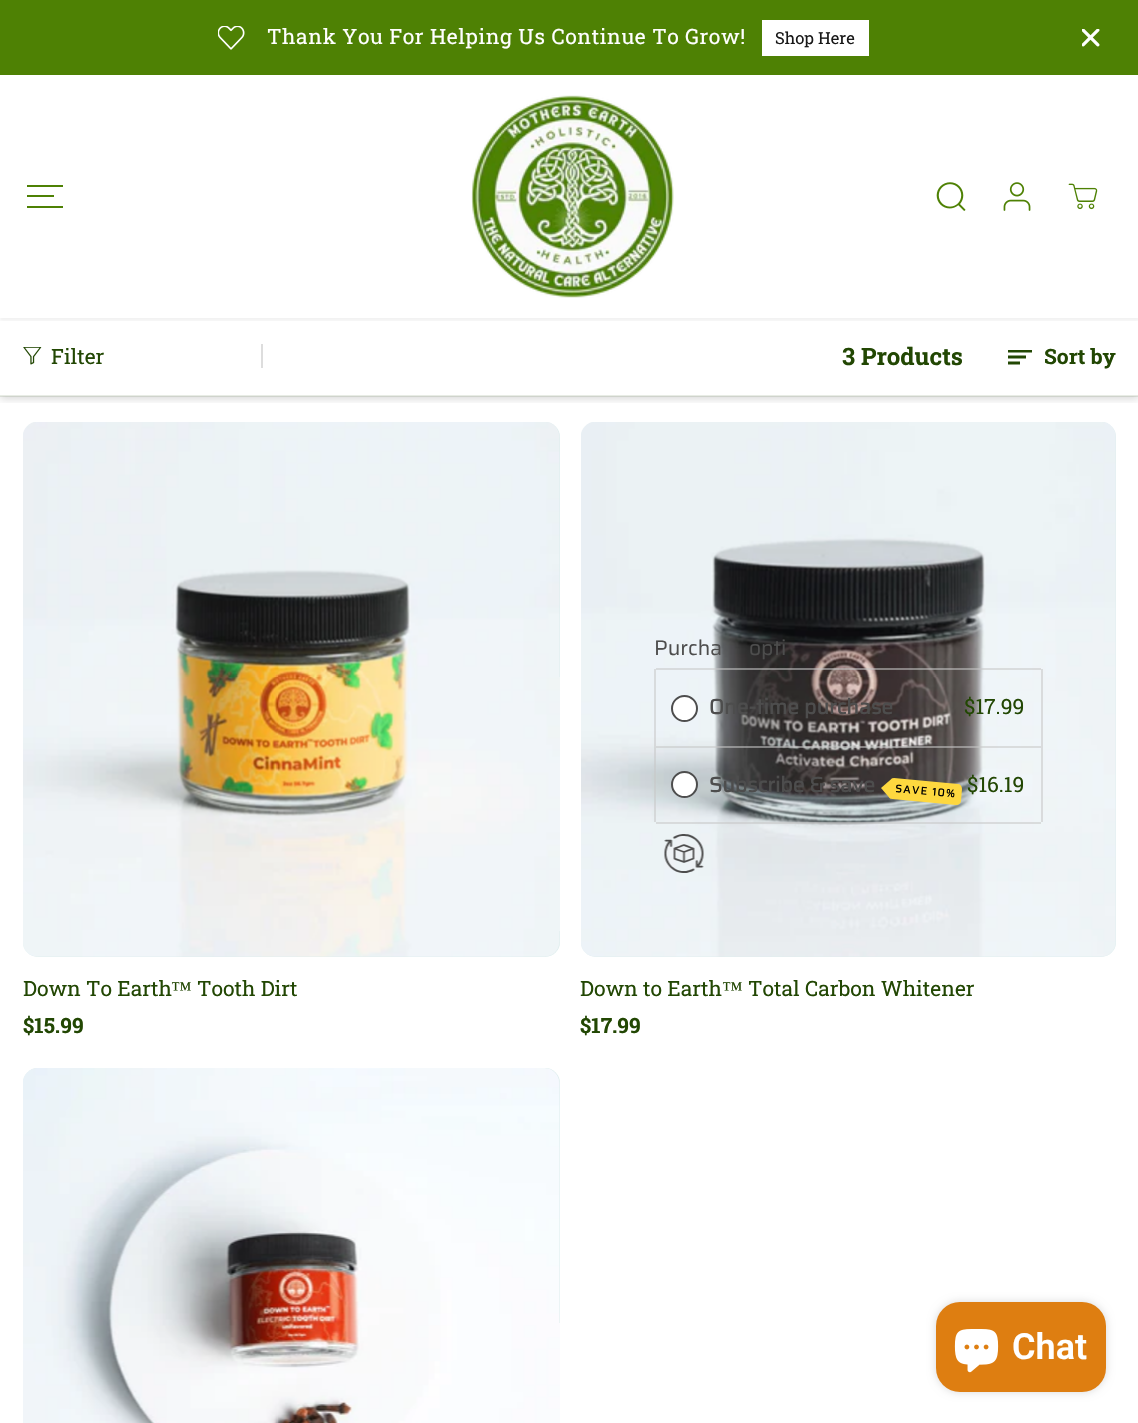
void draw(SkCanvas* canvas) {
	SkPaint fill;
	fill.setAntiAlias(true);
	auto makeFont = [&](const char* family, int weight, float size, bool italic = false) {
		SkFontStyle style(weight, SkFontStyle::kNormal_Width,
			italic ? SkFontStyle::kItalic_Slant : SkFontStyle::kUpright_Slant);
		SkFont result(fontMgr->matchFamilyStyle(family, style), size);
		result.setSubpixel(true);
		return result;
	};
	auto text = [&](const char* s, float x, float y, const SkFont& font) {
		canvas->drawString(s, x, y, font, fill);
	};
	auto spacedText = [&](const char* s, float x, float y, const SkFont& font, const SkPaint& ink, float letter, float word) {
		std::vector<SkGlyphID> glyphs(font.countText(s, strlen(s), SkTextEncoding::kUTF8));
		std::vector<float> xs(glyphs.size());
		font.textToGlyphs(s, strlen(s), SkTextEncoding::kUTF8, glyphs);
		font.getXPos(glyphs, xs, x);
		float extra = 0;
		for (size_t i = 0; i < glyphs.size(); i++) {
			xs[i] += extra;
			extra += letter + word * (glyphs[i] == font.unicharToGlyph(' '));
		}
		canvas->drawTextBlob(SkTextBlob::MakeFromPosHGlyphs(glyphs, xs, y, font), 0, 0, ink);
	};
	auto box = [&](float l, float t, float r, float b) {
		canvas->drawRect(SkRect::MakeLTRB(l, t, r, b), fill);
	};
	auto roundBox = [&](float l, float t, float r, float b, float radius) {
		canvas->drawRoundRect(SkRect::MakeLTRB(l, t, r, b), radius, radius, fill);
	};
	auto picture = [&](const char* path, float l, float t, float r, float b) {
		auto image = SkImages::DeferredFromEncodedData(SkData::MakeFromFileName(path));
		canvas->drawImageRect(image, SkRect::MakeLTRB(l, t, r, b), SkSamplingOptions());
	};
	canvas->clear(0xFFFFFFFF);
	fill.setColor(0xFF4E8104);
	box(0, 0, 1138, 75);
	picture("image0.png", 218, 26, 245, 50);
	fill.setColor(0xFFFFFFFF);
	box(762, 20, 869, 56);
	picture("image1.png", 1082, 29, 1100, 47);
	canvas->save();
	canvas->clipRect(SkRect::MakeLTRB(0, 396, 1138, 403));
	fill.setColor(0x26000000);
	fill.setMaskFilter(SkMaskFilter::MakeBlur(kNormal_SkBlurStyle, 4));
	canvas->drawRect(SkRect::MakeLTRB(0, 321, 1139, 399), fill);
	fill.setMaskFilter(nullptr);
	canvas->restore();
	fill.setColor(0xFFFFFFFF);
	box(0, 315, 1138, 318);
	canvas->save();
	canvas->clipRect(SkRect::MakeLTRB(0, 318, 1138, 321));
	fill.setColor(0x0D000000);
	fill.setMaskFilter(SkMaskFilter::MakeBlur(kNormal_SkBlurStyle, 1.5f));
	canvas->drawRect(SkRect::MakeLTRB(0, 78, 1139, 321), fill);
	fill.setMaskFilter(nullptr);
	canvas->restore();
	fill.setColor(0xFF4E8104);
	box(27, 185, 63, 187);
	box(27, 195, 54, 197);
	box(27, 206, 63, 208);
	picture("image2.png", 471, 95, 674, 298);
	picture("image3.png", 936, 182, 966, 211);
	picture("image4.png", 1003, 182, 1031, 211);
	picture("image5.png", 1068, 183, 1098, 210);
	fill.setColor(0x1A224703);
	box(0, 395, 1138, 397);
	fill.setColor(0xFFDDDDDD);
	box(261, 344, 263, 368);
	picture("image6.png", 23, 347, 42, 365);
	picture("image7.png", 1008, 350, 1032, 365);
	fill.setColor(0xFFDDEDED);
	roundBox(23, 422, 560, 957, 15);
	picture("image8.png", 23, 422, 560, 957);
	roundBox(581, 422, 1116, 957, 15);
	picture("image9.png", 581, 422, 1116, 957);
	fill.setColor(0x8CC6C6C6);
	box(656, 668, 1041, 670);
	fill.setColor(0xFFD9DBDC);
	box(1041, 669, 1043, 822);
	fill.setColor(0x8CC6C6C6);
	box(654, 669, 656, 822);
	box(656, 746, 1041, 748);
	fill.setColor(0xFFFFFFFF);
	canvas->drawCircle(684.5f, 708.5f, 12.5f, fill);
	fill.setStyle(SkPaint::kStroke_Style);
	fill.setStrokeWidth(2);
	fill.setColor(0xFF4D4D4D);
	canvas->drawCircle(684.5f, 708.5f, 12.5f, fill);
	fill.setStyle(SkPaint::kFill_Style);
	fill.setColor(0x8CC6C6C6);
	box(656, 822, 1041, 824);
	fill.setColor(0xFFFFFFFF);
	canvas->drawCircle(684.5f, 784.5f, 12.5f, fill);
	fill.setStyle(SkPaint::kStroke_Style);
	fill.setColor(0xFF4D4D4D);
	canvas->drawCircle(684.5f, 784.5f, 12.5f, fill);
	fill.setStyle(SkPaint::kFill_Style);
	fill.setColor(0xFFFED83F);
	canvas->drawPath(SkPathBuilder().moveTo(894, 778).lineTo(958, 784).cubicTo(960, 784, 962, 786, 962, 789).lineTo(961, 801).cubicTo(961, 803, 959, 805, 956, 805).lineTo(892, 799).cubicTo(891, 799, 889, 798, 889, 796).lineTo(891, 781).cubicTo(891, 779, 892, 778, 894, 778).close().detach(), fill);
	canvas->drawPath(SkPathBuilder().moveTo(881, 788).lineTo(892.5f, 778).lineTo(890.5f, 799).close().detach(), fill);
	picture("image10.png", 664, 834, 704, 873);
	fill.setColor(0xFFDDEDED);
	roundBox(23, 1068, 560, 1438, 15);
	picture("image11.png", 23, 1068, 560, 1423);
	fill.setColor(0x26000000);
	fill.setMaskFilter(SkMaskFilter::MakeBlur(kNormal_SkBlurStyle, 4));
	canvas->drawRoundRect(SkRect::MakeLTRB(936, 1302, 1106, 1392), 24, 24, fill);
	fill.setMaskFilter(nullptr);
	fill.setColor(0xFFDE7E11);
	roundBox(936, 1302, 1106, 1392, 24);
	picture("image12.png", 954, 1329, 999, 1373);
	auto font1 = makeFont("Roboto Slab", 400, 21);
	fill.setColor(0xFFFFFFFF);
	spacedText("Thank You For Helping Us Continue To Grow!", 267, 44, font1, fill, 0.6f, 0);
	auto font2 = makeFont("Roboto Slab", 400, 16.5f);
	fill.setColor(0xFF181818);
	text("Shop Here", 775, 44, font2);
	fill.setColor(0xFF224703);
	text("Filter", 51, 364, font1);
	auto font3 = makeFont("Roboto Slab", 700, 24);
	text("3 Products", 842, 365, font3);
	auto font4 = makeFont("Roboto Slab", 700, 21);
	text("Sort by", 1044, 364, font4);
	text("Down To Earth", 23, 996, font1);
	auto font5 = makeFont("Liberation Serif", 400, 21);
	text("™", 171, 996, font5);
	text("Tooth Dirt", 197, 996, font1);
	text("$15.99", 23, 1033, font4);
	auto font6 = makeFont("Saira", 400, 21);
	fill.setColor(0xFF4D4D4D);
	text("Purcha", 654, 655, font6);
	text("opti", 749, 655, font6);
	auto font7 = makeFont("Saira", 700, 21);
	text("One-time purchase", 709, 714, font7);
	fill.setColor(0xFF224703);
	text("$17.99", 964, 714, font1);
	fill.setColor(0xFF4D4D4D);
	text("Subscribe & save", 709, 792, font7);
	auto font8 = makeFont("Saira", 700, 10.5f);
	fill.setColor(0xFF000000);
	canvas->save();
	canvas->rotate(5, 895, 792);
	spacedText("SAVE 10%", 895, 792, font8, fill, 1.5f, 0);
	canvas->restore();
	fill.setColor(0xFF224703);
	text("$16.19", 967, 792, font1);
	text("Down to Earth", 580, 996, font1);
	text("™", 722, 996, font5);
	text("Total Carbon Whitener", 748, 996, font1);
	text("$17.99", 580, 1033, font4);
	auto font9 = makeFont("Roboto", 600, 36);
	fill.setColor(0xFFFFFFFF);
	text("Chat", 1012, 1359, font9);
}
